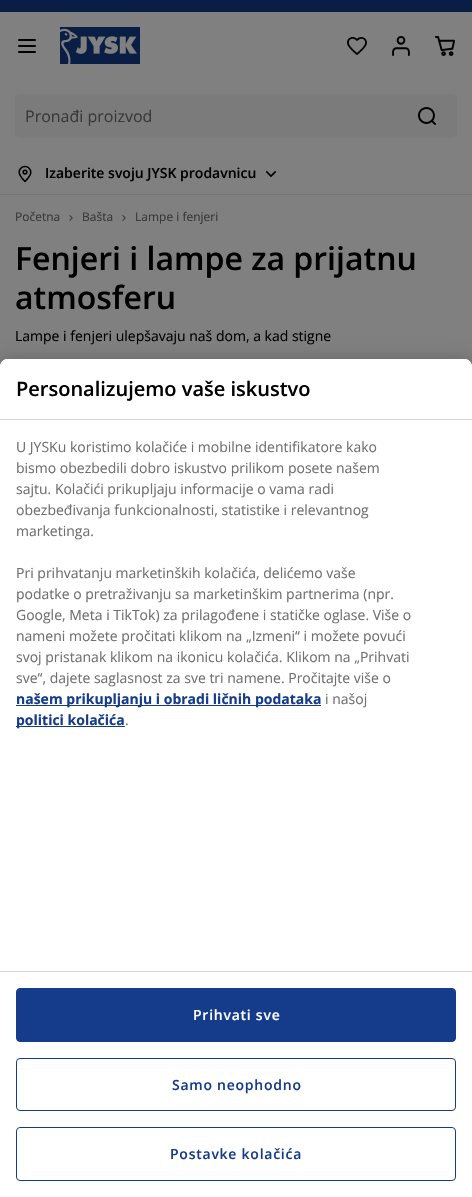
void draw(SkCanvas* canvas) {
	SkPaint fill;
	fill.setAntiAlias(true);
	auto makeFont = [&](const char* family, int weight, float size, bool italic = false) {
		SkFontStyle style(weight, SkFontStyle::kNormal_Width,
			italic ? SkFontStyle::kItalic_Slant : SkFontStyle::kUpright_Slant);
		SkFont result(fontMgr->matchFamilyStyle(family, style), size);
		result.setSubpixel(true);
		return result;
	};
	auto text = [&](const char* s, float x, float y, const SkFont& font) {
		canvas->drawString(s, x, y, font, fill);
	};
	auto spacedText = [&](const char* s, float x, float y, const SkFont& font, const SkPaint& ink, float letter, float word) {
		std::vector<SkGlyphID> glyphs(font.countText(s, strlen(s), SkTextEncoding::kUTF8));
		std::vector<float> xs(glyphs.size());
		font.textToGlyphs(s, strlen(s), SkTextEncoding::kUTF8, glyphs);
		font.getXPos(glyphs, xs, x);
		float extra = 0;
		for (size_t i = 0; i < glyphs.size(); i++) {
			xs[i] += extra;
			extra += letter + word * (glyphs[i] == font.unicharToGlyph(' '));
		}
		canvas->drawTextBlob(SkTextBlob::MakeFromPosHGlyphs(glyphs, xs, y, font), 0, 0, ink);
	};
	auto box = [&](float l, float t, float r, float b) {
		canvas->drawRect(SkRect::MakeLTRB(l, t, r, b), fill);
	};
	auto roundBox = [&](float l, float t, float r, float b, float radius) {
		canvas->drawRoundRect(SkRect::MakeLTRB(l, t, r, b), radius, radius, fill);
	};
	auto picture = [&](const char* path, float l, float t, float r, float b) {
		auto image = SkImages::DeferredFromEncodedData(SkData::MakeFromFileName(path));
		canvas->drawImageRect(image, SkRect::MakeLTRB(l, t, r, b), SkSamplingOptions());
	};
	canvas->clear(0xFF808080);
	fill.setColor(0xFF0A1E45);
	box(0, 0, 472, 12);
	fill.setColor(0xFF767676);
	box(0, 194, 472, 195);
	picture("image0.png", 18, 39, 36, 53);
	picture("image1.png", 60, 27, 140, 64);
	picture("image2.png", 347, 37, 367, 55);
	picture("image3.png", 392, 36, 410, 56);
	picture("image4.png", 435, 36, 455, 56);
	fill.setColor(0xFF7B7B7B);
	roundBox(15, 94, 457, 138, 5);
	picture("image5.png", 418, 107, 436, 125);
	picture("image6.png", 18, 165, 32, 183);
	picture("image7.png", 266, 171, 276, 177);
	picture("image8.png", 69, 215, 73, 221);
	picture("image8.png", 122, 215, 126, 221);
	fill.setColor(0x33000000);
	fill.setMaskFilter(SkMaskFilter::MakeBlur(kNormal_SkBlurStyle, 9));
	canvas->drawRoundRect(SkRect::MakeLTRB(0, 359, 472, 1197), 8, 8, fill);
	fill.setMaskFilter(nullptr);
	fill.setColor(0xFFFFFFFF);
	canvas->drawPath(SkPathBuilder().moveTo(8, 359).lineTo(464, 359).cubicTo(468.5f, 359, 472, 362.5f, 472, 367).lineTo(472, 1197).lineTo(0, 1197).lineTo(0, 367).cubicTo(0, 362.5f, 3.5f, 359, 8, 359).close().detach(), fill);
	canvas->drawPath(SkPathBuilder().moveTo(8, 359).lineTo(464, 359).cubicTo(468.5f, 359, 472, 362.5f, 472, 367).lineTo(472, 971).lineTo(0, 971).lineTo(0, 367).cubicTo(0, 362.5f, 3.5f, 359, 8, 359).close().detach(), fill);
	fill.setColor(0xFFD4D4D4);
	box(0, 419, 472, 420);
	fill.setColor(0xFF143C8A);
	box(16, 705, 321, 706);
	box(16, 726, 125, 727);
	fill.setColor(0xFFD4D4D4);
	box(0, 971, 472, 972);
	fill.setColor(0xFF143C8A);
	canvas->drawRoundRect(SkRect::MakeLTRB(16.5f, 988.5f, 455.5f, 1041.5f), 3.5f, 3.5f, fill);
	fill.setStyle(SkPaint::kStroke_Style);
	fill.setStrokeWidth(1);
	canvas->drawRoundRect(SkRect::MakeLTRB(16.5f, 988.5f, 455.5f, 1041.5f), 3.5f, 3.5f, fill);
	canvas->drawRoundRect(SkRect::MakeLTRB(16.5f, 1058.5f, 455.5f, 1110.5f), 3.5f, 3.5f, fill);
	canvas->drawRoundRect(SkRect::MakeLTRB(16.5f, 1127.5f, 455.5f, 1180.5f), 3.5f, 3.5f, fill);
	auto font1 = makeFont("Open Sans", 400, 16);
	fill.setStyle(SkPaint::kFill_Style);
	fill.setColor(0xFF383838);
	text("Pronađi proizvod", 25, 122, font1);
	auto font2 = makeFont("Open Sans", 600, 14);
	fill.setColor(0xFF000000);
	text("Izaberite svoju JYSK prodavnicu", 45, 178, font2);
	auto font3 = makeFont("Open Sans", 400, 12);
	fill.setColor(0xFF383838);
	text("Početna", 15, 221, font3);
	text("Bašta", 82, 221, font3);
	text("Lampe i fenjeri", 135, 221, font3);
	auto font4 = makeFont("Open Sans", 600, 32);
	fill.setColor(0xFF000000);
	text("Fenjeri i lampe za prijatnu", 15, 270, font4);
	text("atmosferu", 15, 309, font4);
	auto font5 = makeFont("Open Sans", 400, 14);
	text("Lampe i fenjeri ulepšavaju naš dom, a kad stigne", 15, 341, font5);
	auto font6 = makeFont("Open Sans", 600, 20);
	text("Personalizujemo vaše iskustvo", 16, 396, font6);
	fill.setColor(0xFF707070);
	text("U JYSKu koristimo kolačiće i mobilne identifikatore kako", 16, 452, font5);
	text("bismo obezbedili dobro iskustvo prilikom posete našem", 16, 473, font5);
	text("sajtu. Kolačići prikupljaju informacije o vama radi", 16, 494, font5);
	text("obezbeđivanja funkcionalnosti, statistike i relevantnog", 16, 515, font5);
	text("marketinga.", 16, 536, font5);
	text("Pri prihvatanju marketinških kolačića, delićemo vaše", 16, 578, font5);
	text("podatke o pretraživanju sa marketinškim partnerima (npr.", 16, 599, font5);
	text("Google, Meta i TikTok) za prilagođene i statičke oglase. Više o", 16, 620, font5);
	text("nameni možete pročitati klikom na „Izmeni“ i možete povući", 16, 641, font5);
	text("svoj pristanak klikom na ikonicu kolačića. Klikom na „Prihvati", 16, 662, font5);
	text("sve“, dajete saglasnost za sve tri namene. Pročitajte više o", 16, 683, font5);
	auto font7 = makeFont("Open Sans", 700, 14);
	fill.setColor(0xFF143C8A);
	text("našem prikupljanju i obradi ličnih podataka", 16, 704, font7);
	fill.setColor(0xFF707070);
	text("i našoj", 325, 704, font5);
	fill.setColor(0xFF143C8A);
	text("politici kolačića", 16, 725, font7);
	fill.setColor(0xFF707070);
	text(".", 125, 725, font5);
	fill.setColor(0xFFFFFFFF);
	spacedText("Prihvati sve", 193, 1020, font2, fill, 0.75f, 0);
	fill.setColor(0xFF143C8A);
	spacedText("Samo neophodno", 172, 1090, font2, fill, 0.75f, 0);
	spacedText("Postavke kolačića", 170, 1159, font2, fill, 0.75f, 0);
}
